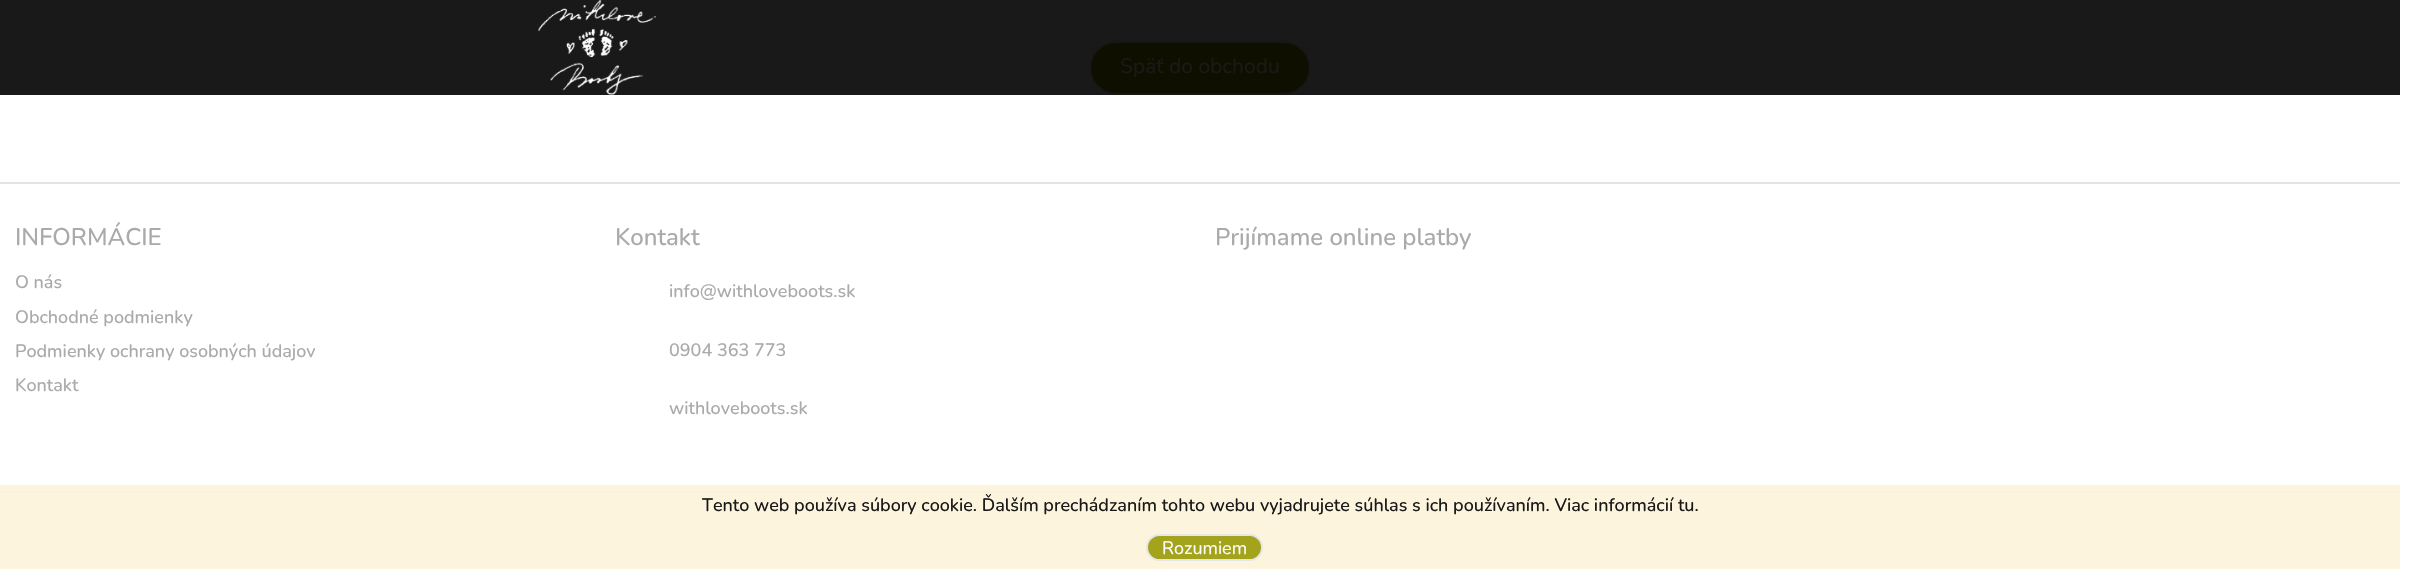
void draw(SkCanvas* canvas) {
	SkPaint fill;
	fill.setAntiAlias(true);
	auto makeFont = [&](const char* family, int weight, float size, bool italic = false) {
		SkFontStyle style(weight, SkFontStyle::kNormal_Width,
			italic ? SkFontStyle::kItalic_Slant : SkFontStyle::kUpright_Slant);
		SkFont result(fontMgr->matchFamilyStyle(family, style), size);
		result.setSubpixel(true);
		return result;
	};
	auto text = [&](const char* s, float x, float y, const SkFont& font) {
		canvas->drawString(s, x, y, font, fill);
	};
	auto box = [&](float l, float t, float r, float b) {
		canvas->drawRect(SkRect::MakeLTRB(l, t, r, b), fill);
	};
	auto picture = [&](const char* path, float l, float t, float r, float b) {
		auto image = SkImages::DeferredFromEncodedData(SkData::MakeFromFileName(path));
		canvas->drawImageRect(image, SkRect::MakeLTRB(l, t, r, b), SkSamplingOptions());
	};
	canvas->clear(0xFFFFFFFF);
	fill.setColor(0xFFFDF4DE);
	box(0, 485, 2400, 569);
	fill.setColor(0xFF191919);
	box(0, 0, 2400, 95);
	picture("image0.png", 538, 0, 656, 95);
	fill.setColor(0xFF0F0F00);
	canvas->drawRoundRect(SkRect::MakeLTRB(1090, 42, 1310, 94), 26, 26, fill);
	fill.setStyle(SkPaint::kStroke_Style);
	fill.setStrokeWidth(2);
	fill.setColor(0xFF171717);
	canvas->drawRoundRect(SkRect::MakeLTRB(1090, 42, 1310, 94), 26, 26, fill);
	fill.setStyle(SkPaint::kFill_Style);
	fill.setColor(0xFFE3E3E3);
	box(0, 182, 2400, 184);
	fill.setColor(0xFFFAF1DB);
	box(0, 491, 2400, 493);
	fill.setColor(0xFFA3A31C);
	canvas->drawRoundRect(SkRect::MakeLTRB(1147, 535, 1262, 560), 12.5f, 12.5f, fill);
	fill.setStyle(SkPaint::kStroke_Style);
	fill.setColor(0xFFE6E6E6);
	canvas->drawRoundRect(SkRect::MakeLTRB(1147, 535, 1262, 560), 12.5f, 12.5f, fill);
	auto font1 = makeFont("Nunito", 400, 21);
	fill.setStyle(SkPaint::kFill_Style);
	fill.setColor(0xFF191919);
	text("Späť do obchodu", 1120, 73, font1);
	auto font2 = makeFont("Nunito", 500, 24);
	fill.setColor(0xFFAAAAAA);
	text("INFORMÁCIE", 15, 245, font2);
	auto font3 = makeFont("Nunito", 500, 18);
	text("O nás", 15, 288, font3);
	text("Obchodné podmienky", 15, 323, font3);
	text("Podmienky ochrany osobných údajov", 15, 357, font3);
	text("Kontakt", 15, 391, font3);
	text("Kontakt", 615, 245, font2);
	text("info@withloveboots.sk", 669, 297, font3);
	text("0904 363 773", 669, 356, font3);
	text("withloveboots.sk", 669, 414, font3);
	text("Prijímame online platby", 1215, 245, font2);
	fill.setColor(0xFF191919);
	text("Tento web používa súbory cookie. Ďalším prechádzaním tohto webu vyjadrujete súhlas s ich používaním. Viac informácií tu.", 702, 511, font3);
	auto font4 = makeFont("Nunito", 400, 18);
	fill.setColor(0xFFFFFFFF);
	text("Rozumiem", 1162, 554, font4);
}
